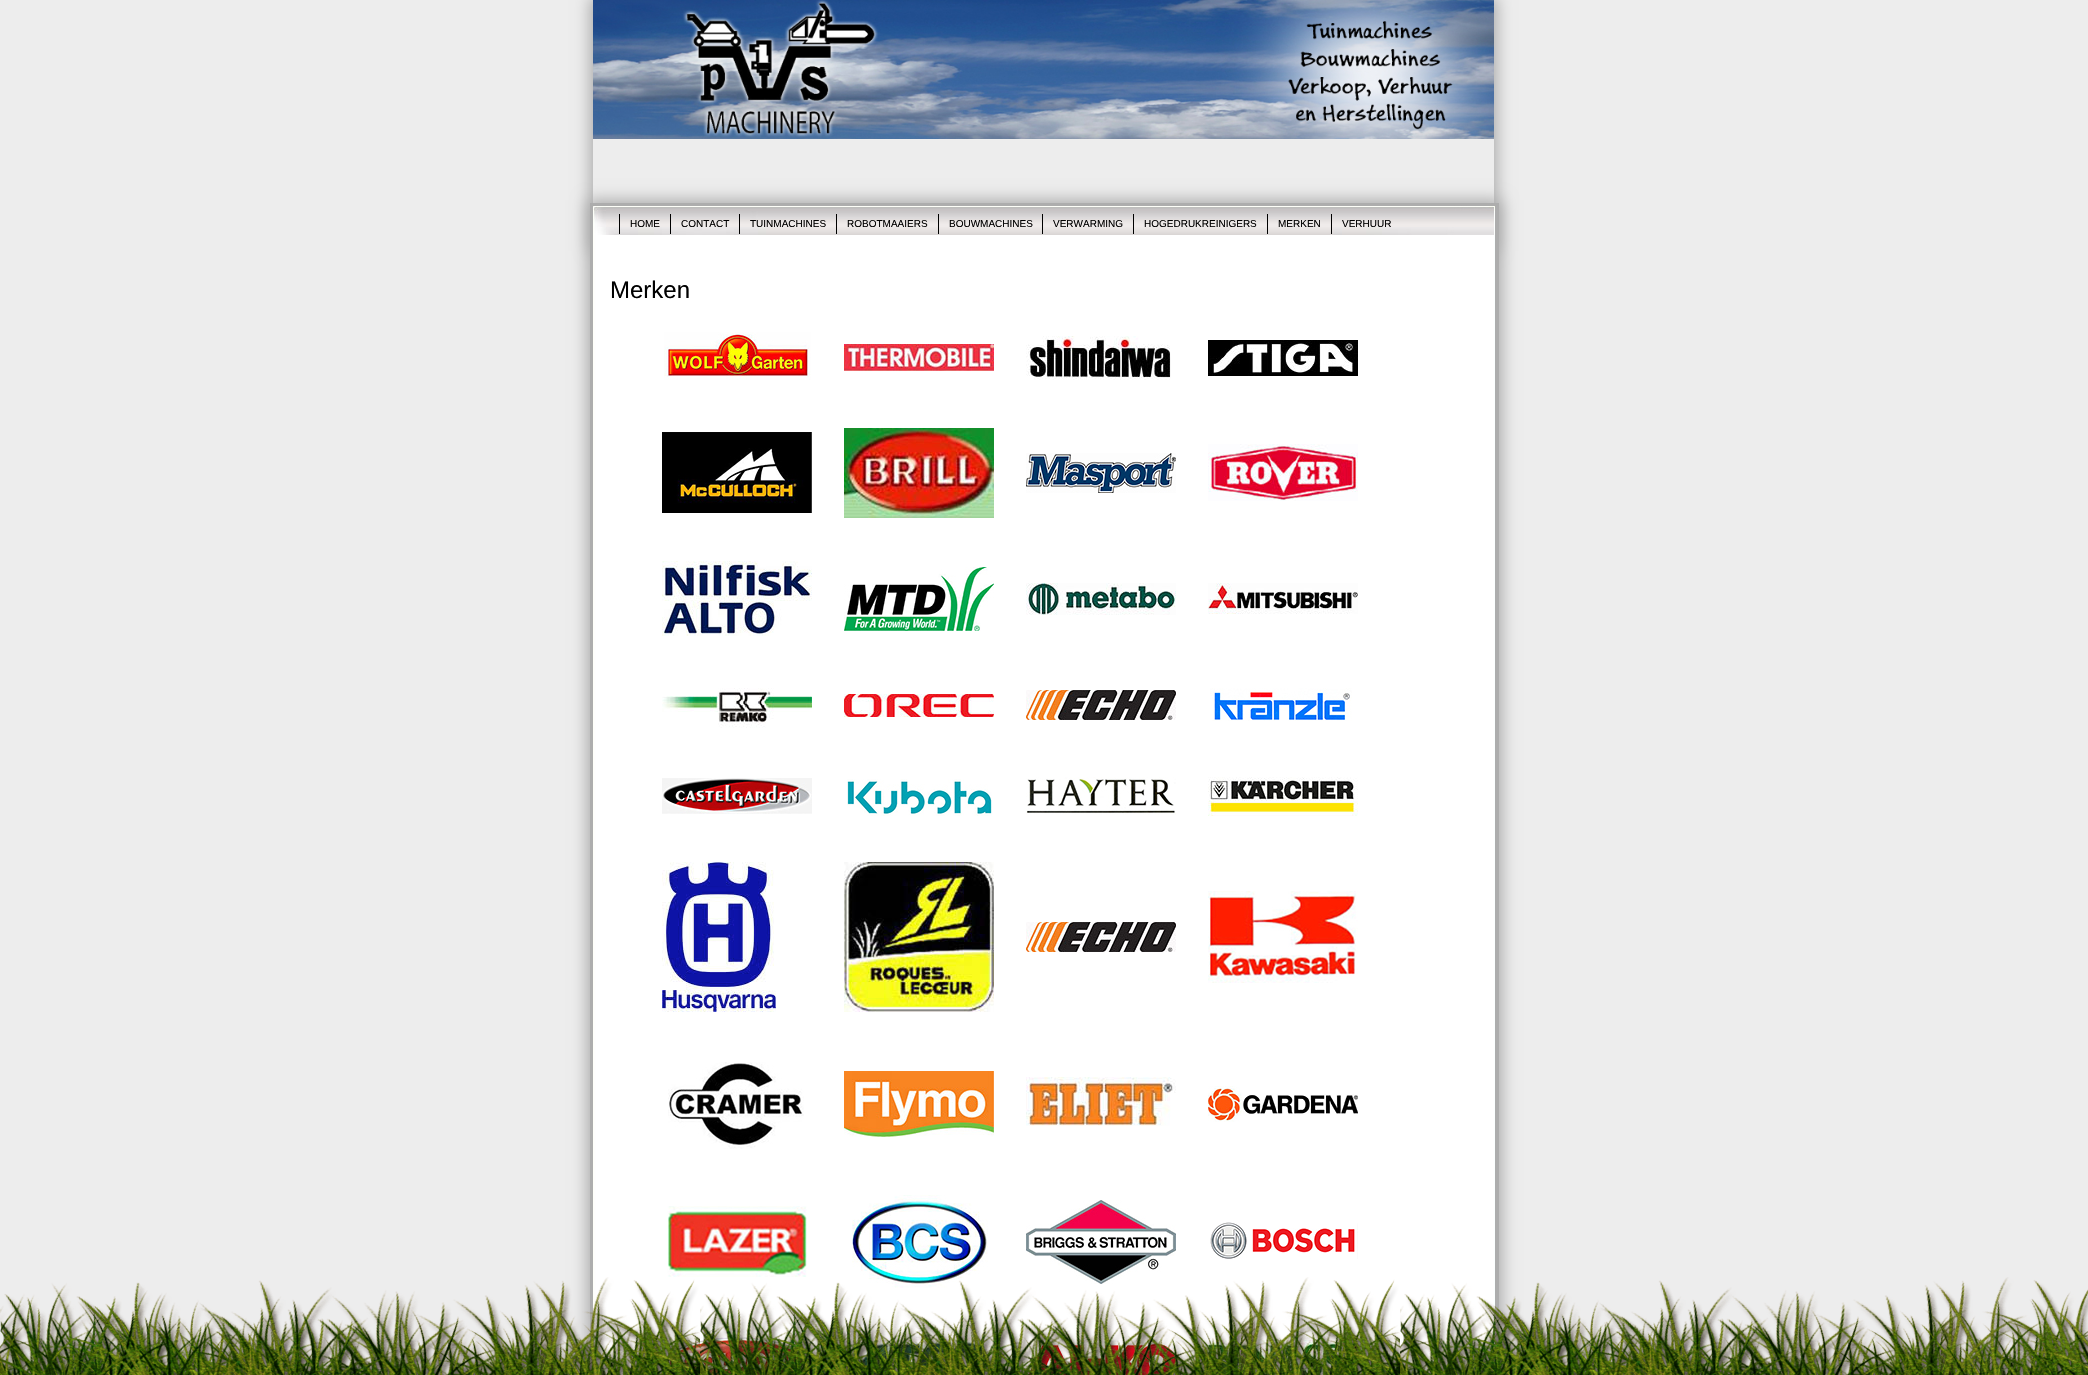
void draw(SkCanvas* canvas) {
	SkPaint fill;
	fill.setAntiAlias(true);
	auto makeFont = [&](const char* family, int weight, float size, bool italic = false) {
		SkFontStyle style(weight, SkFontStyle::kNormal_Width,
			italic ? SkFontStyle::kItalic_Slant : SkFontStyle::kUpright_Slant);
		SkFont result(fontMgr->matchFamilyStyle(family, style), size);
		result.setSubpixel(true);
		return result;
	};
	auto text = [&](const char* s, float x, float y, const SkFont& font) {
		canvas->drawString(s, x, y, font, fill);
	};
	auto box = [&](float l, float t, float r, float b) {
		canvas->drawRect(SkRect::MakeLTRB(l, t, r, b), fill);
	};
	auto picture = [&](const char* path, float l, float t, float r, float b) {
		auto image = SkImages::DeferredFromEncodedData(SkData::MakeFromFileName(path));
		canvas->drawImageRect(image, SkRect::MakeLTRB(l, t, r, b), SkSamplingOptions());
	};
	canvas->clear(0xFFEDEDED);
	canvas->save();
	canvas->clipPath(SkPathBuilder(SkPathFillType::kEvenOdd).moveTo(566, 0).lineTo(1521, 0).lineTo(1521, 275).lineTo(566, 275).close().moveTo(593, 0).lineTo(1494, 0).lineTo(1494, 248).lineTo(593, 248).close().detach(), true);
	fill.setColor(0xFFAAAAAA);
	fill.setMaskFilter(SkMaskFilter::MakeBlur(kNormal_SkBlurStyle, 7.5f));
	canvas->drawRect(SkRect::MakeLTRB(590, -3, 1497, 251), fill);
	fill.setMaskFilter(nullptr);
	canvas->restore();
	picture("image0.png", 593, 0, 1494, 139);
	fill.setMaskFilter(SkMaskFilter::MakeBlur(kNormal_SkBlurStyle, 7.5f));
	canvas->drawRect(SkRect::MakeLTRB(587, 200, 1502, 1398), fill);
	fill.setMaskFilter(nullptr);
	picture("image2.png", 590, 203, 1499, 1375);
	picture("image1.png", 593, 203, 1495, 235);
	fill.setColor(0xFF000000);
	box(619, 214, 620, 234);
	box(670, 214, 671, 234);
	box(739, 214, 740, 234);
	box(836, 214, 837, 234);
	box(938, 214, 939, 234);
	box(1042, 214, 1043, 234);
	box(1133, 214, 1134, 234);
	box(1267, 214, 1268, 234);
	box(1331, 214, 1332, 234);
	picture("image3.png", 664, 332, 811, 380);
	picture("image4.png", 844, 344, 994, 371);
	picture("image5.png", 1026, 336, 1171, 380);
	picture("image6.png", 1208, 340, 1358, 376);
	picture("image7.png", 662, 432, 812, 513);
	picture("image8.png", 844, 428, 994, 518);
	picture("image9.png", 1026, 453, 1176, 493);
	picture("image10.png", 1208, 444, 1358, 501);
	picture("image11.png", 662, 561, 812, 636);
	picture("image12.png", 844, 567, 994, 631);
	picture("image13.png", 1026, 583, 1176, 615);
	picture("image14.png", 1208, 583, 1358, 614);
	picture("image15.png", 662, 688, 812, 728);
	picture("image16.png", 844, 694, 994, 717);
	picture("image17.png", 1026, 690, 1176, 720);
	picture("image18.png", 1210, 688, 1352, 721);
	picture("image19.png", 662, 778, 812, 814);
	picture("image20.png", 847, 779, 992, 816);
	picture("image21.png", 1026, 777, 1176, 815);
	picture("image22.png", 1208, 777, 1358, 816);
	picture("image23.png", 662, 862, 776, 1012);
	picture("image24.png", 844, 862, 994, 1012);
	picture("image17.png", 1026, 922, 1176, 952);
	picture("image25.png", 1208, 891, 1358, 983);
	picture("image26.png", 668, 1062, 804, 1149);
	picture("image27.png", 844, 1071, 994, 1137);
	picture("image28.png", 1026, 1077, 1176, 1126);
	picture("image29.png", 1208, 1086, 1358, 1122);
	picture("image30.png", 667, 1206, 807, 1277);
	picture("image31.png", 852, 1195, 988, 1288);
	picture("image32.png", 1026, 1200, 1176, 1284);
	picture("image33.png", 1210, 1222, 1358, 1259);
	picture("image34.png", 665, 1336, 807, 1375);
	picture("image35.png", 844, 1337, 994, 1375);
	picture("image36.png", 1028, 1344, 1176, 1375);
	picture("image37.png", 1208, 1340, 1358, 1375);
	picture("image38.png", 0, 1277, 2088, 1375);
	auto font1 = makeFont("Liberation Sans", 400, 10);
	text("HOME", 630, 227, font1);
	text("CONTACT", 681, 227, font1);
	text("TUINMACHINES", 750, 227, font1);
	text("ROBOTMAAIERS", 847, 227, font1);
	text("BOUWMACHINES", 949, 227, font1);
	text("VERWARMING", 1053, 227, font1);
	text("HOGEDRUKREINIGERS", 1144, 227, font1);
	text("MERKEN", 1278, 227, font1);
	text("VERHUUR", 1342, 227, font1);
	auto font2 = makeFont("Liberation Sans", 400, 24);
	text("Merken", 610, 298, font2);
}
